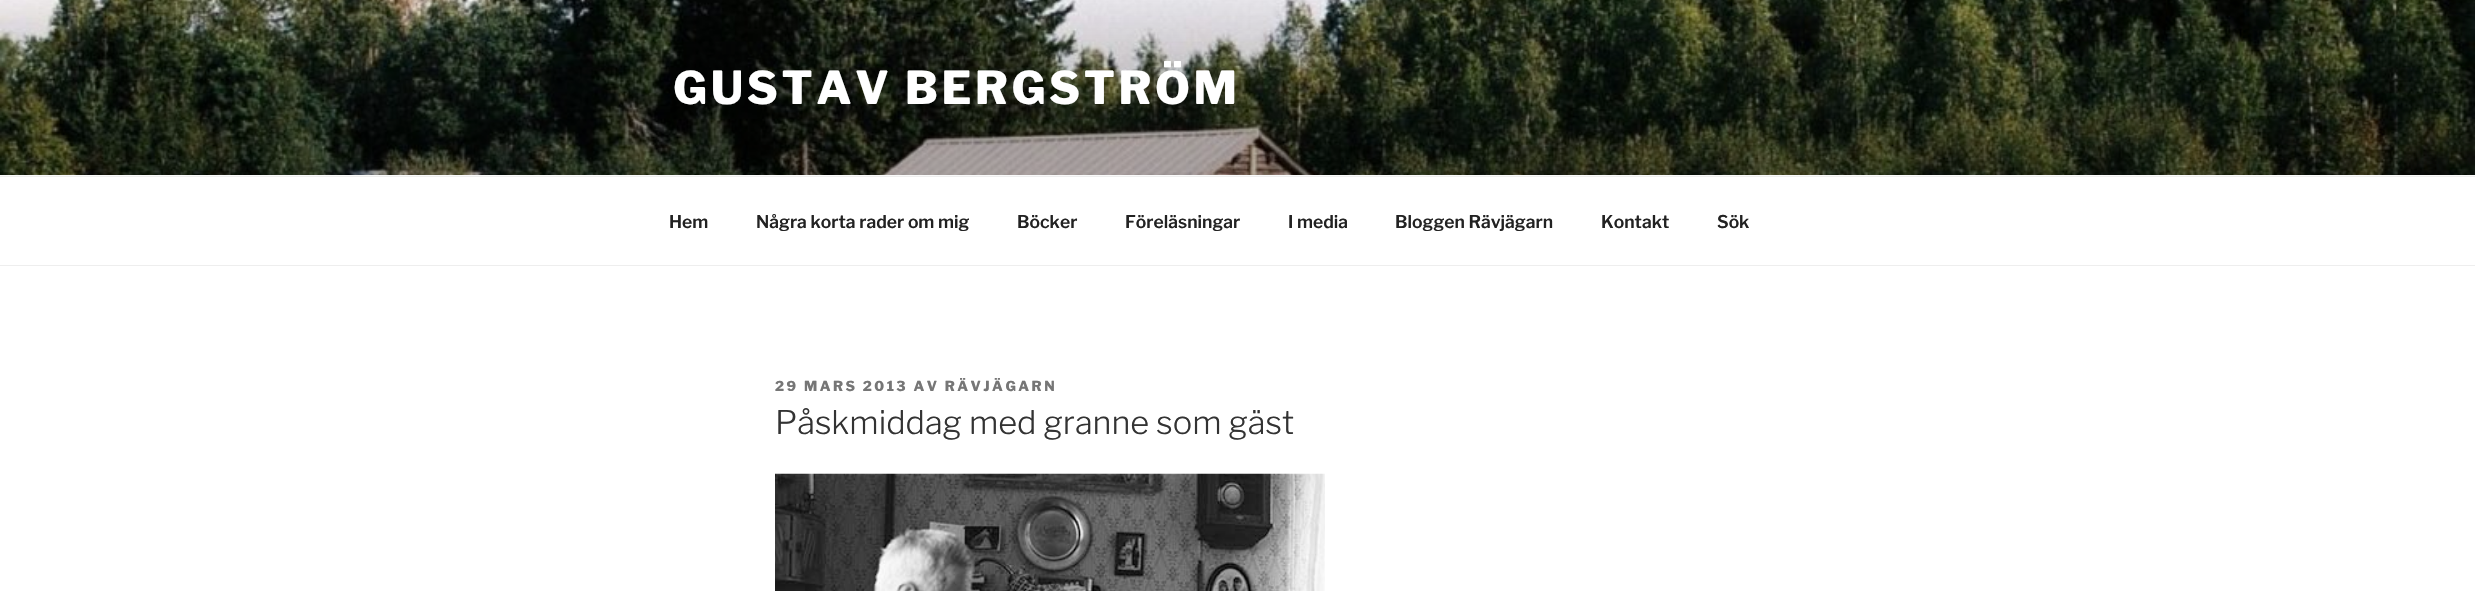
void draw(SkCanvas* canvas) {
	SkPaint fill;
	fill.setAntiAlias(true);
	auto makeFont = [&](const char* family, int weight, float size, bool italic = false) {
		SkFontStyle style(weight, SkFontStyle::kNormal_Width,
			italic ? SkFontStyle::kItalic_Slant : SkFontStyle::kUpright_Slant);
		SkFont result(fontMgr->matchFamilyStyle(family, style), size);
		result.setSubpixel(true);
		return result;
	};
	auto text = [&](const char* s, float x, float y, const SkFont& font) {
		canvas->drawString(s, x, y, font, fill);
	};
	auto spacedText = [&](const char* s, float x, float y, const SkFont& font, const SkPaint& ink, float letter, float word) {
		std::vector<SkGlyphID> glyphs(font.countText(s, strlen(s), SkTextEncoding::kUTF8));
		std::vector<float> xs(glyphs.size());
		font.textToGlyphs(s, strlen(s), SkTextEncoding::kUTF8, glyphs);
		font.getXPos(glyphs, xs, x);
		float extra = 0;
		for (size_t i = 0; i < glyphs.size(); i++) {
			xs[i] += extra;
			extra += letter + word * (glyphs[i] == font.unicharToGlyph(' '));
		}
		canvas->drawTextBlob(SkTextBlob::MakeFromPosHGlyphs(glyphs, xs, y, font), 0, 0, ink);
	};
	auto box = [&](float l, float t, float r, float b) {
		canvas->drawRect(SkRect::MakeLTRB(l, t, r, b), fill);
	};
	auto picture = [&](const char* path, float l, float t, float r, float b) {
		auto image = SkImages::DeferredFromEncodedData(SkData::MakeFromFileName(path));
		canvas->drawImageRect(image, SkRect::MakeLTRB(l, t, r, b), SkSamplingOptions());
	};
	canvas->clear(0xFFFFFFFF);
	fill.setColor(0xFFFAFAFA);
	box(0, 175, 2475, 176);
	picture("image0.png", 0, 0, 2475, 175);
	fill.setColor(0xFFEEEEEE);
	box(0, 176, 2475, 177);
	box(0, 265, 2475, 266);
	picture("image1.png", 775, 473, 1325, 591);
	auto font1 = makeFont("Libre Franklin", 800, 45);
	fill.setColor(0xFFFFFFFF);
	spacedText("GUSTAV BERGSTRÖM", 673, 104, font1, fill, 3.6f, 0);
	auto font2 = makeFont("Libre Franklin", 600, 17.5f);
	fill.setColor(0xFF222222);
	text("Hem", 669, 228, font2);
	text("Några korta rader om mig", 756, 228, font2);
	text("Böcker", 1017, 228, font2);
	text("Föreläsningar", 1125, 228, font2);
	text("I media", 1288, 228, font2);
	text("Bloggen Rävjägarn", 1395, 228, font2);
	text("Kontakt", 1601, 228, font2);
	text("Sök", 1717, 228, font2);
	auto font3 = makeFont("Libre Franklin", 800, 13.75f);
	fill.setColor(0xFF767676);
	spacedText("29 MARS 2013 AV RÄVJÄGARN", 775, 391, font3, fill, 2.5f, 0);
	auto font4 = makeFont("Libre Franklin", 300, 32.5f);
	fill.setColor(0xFF333333);
	text("Påskmiddag med granne som gäst", 775, 434, font4);
}
